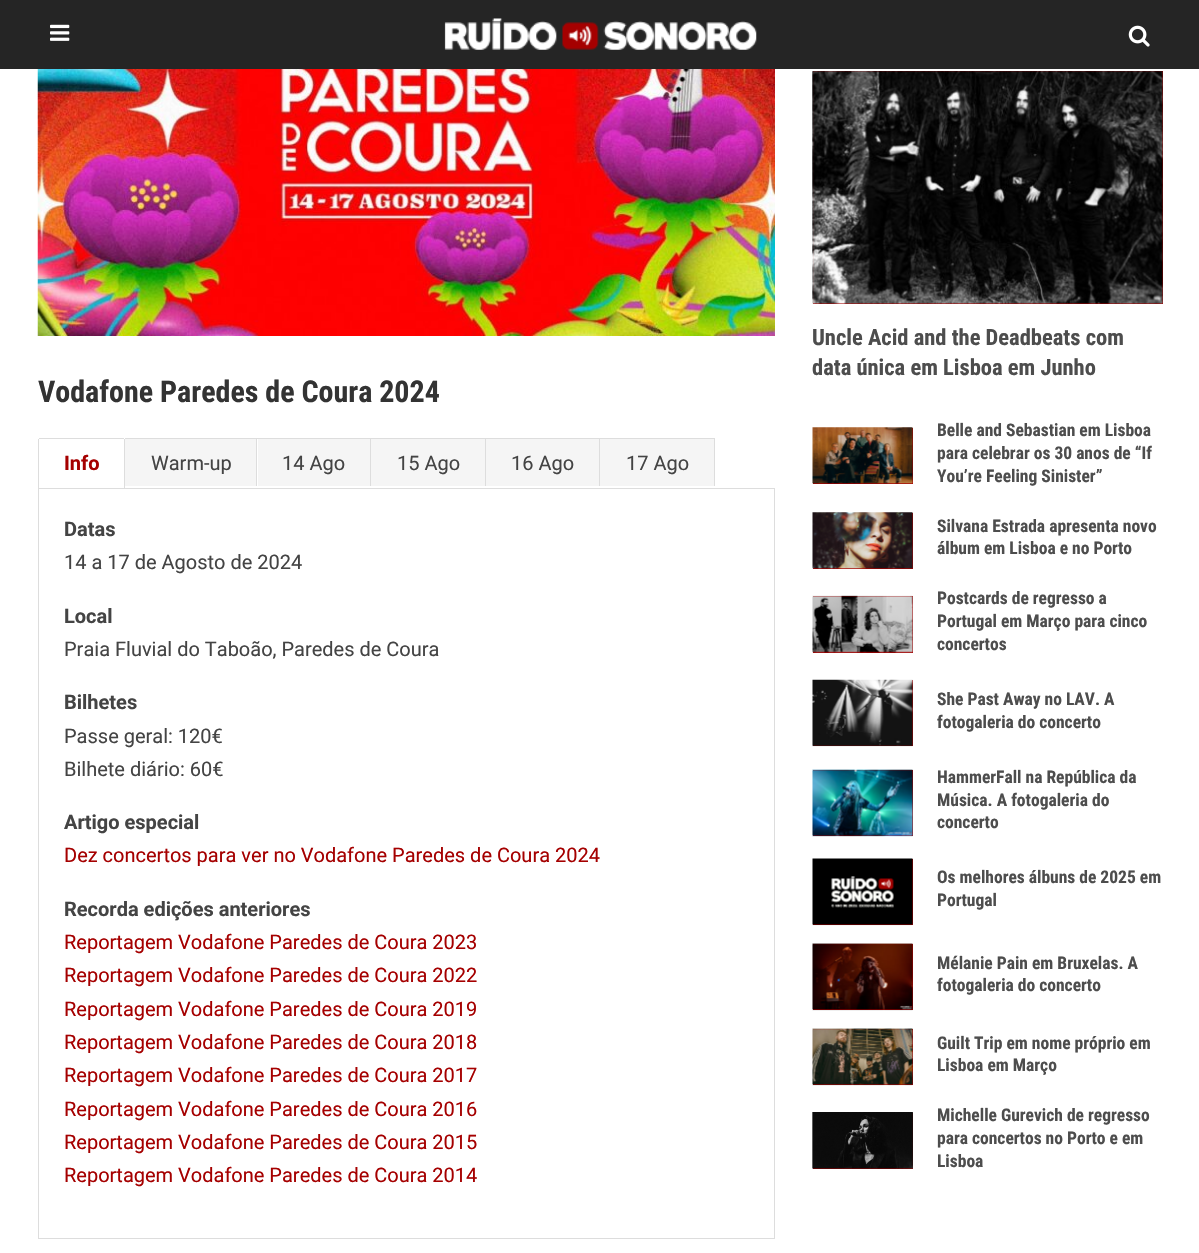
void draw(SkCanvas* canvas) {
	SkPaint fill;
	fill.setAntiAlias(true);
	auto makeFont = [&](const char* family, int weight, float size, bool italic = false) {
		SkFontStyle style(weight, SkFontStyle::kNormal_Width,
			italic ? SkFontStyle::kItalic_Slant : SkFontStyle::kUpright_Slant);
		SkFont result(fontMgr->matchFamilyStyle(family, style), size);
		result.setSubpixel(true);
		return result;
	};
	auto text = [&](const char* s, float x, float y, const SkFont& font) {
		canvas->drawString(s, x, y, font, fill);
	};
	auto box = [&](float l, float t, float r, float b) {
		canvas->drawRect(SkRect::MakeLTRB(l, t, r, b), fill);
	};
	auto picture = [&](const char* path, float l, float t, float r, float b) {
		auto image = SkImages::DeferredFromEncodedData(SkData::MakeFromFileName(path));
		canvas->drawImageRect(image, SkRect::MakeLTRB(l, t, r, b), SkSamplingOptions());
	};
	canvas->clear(0xFFFFFFFF);
	fill.setColor(0xFF252525);
	box(0, 0, 1199, 69);
	picture("image0.png", 50, 24, 70, 41);
	picture("image1.png", 444, 18, 757, 50);
	picture("image2.png", 1128, 25, 1150, 47);
	picture("image3.png", 37, 69, 775, 336);
	fill.setColor(0xFFDDDDDD);
	box(38, 488, 775, 489);
	box(39, 438, 124, 439);
	box(124, 439, 125, 488);
	box(38, 439, 39, 488);
	fill.setColor(0xFFF5F5F5);
	box(125, 439, 256, 486);
	fill.setColor(0xFFDDDDDD);
	box(125, 438, 715, 439);
	box(256, 438, 257, 486);
	fill.setColor(0xFFF5F5F5);
	box(258, 439, 370, 486);
	fill.setColor(0xFFDDDDDD);
	box(370, 438, 371, 486);
	fill.setColor(0xFFF5F5F5);
	box(371, 439, 485, 486);
	fill.setColor(0xFFDDDDDD);
	box(485, 438, 486, 486);
	fill.setColor(0xFFF5F5F5);
	box(486, 439, 599, 486);
	fill.setColor(0xFFDDDDDD);
	box(599, 438, 600, 486);
	fill.setColor(0xFFF5F5F5);
	box(600, 439, 714, 486);
	fill.setColor(0xFFDDDDDD);
	box(714, 438, 715, 486);
	box(774, 489, 775, 1239);
	box(38, 1238, 775, 1239);
	box(38, 489, 39, 1239);
	fill.setColor(0xFFA50000);
	box(813, 71, 1163, 304);
	picture("image4.png", 812, 71, 1163, 304);
	box(813, 428, 913, 484);
	picture("image5.png", 812, 427, 913, 484);
	box(813, 513, 913, 569);
	picture("image6.png", 812, 512, 913, 569);
	box(813, 596, 913, 653);
	picture("image7.png", 812, 595, 913, 653);
	box(813, 680, 913, 746);
	picture("image8.png", 812, 679, 913, 747);
	box(813, 770, 913, 836);
	picture("image9.png", 812, 769, 913, 837);
	box(813, 859, 913, 925);
	picture("image10.png", 812, 858, 913, 926);
	box(813, 944, 913, 1010);
	picture("image11.png", 812, 943, 913, 1011);
	box(813, 1029, 913, 1085);
	picture("image12.png", 812, 1028, 913, 1086);
	box(813, 1113, 913, 1169);
	picture("image13.png", 812, 1112, 913, 1169);
	auto font1 = makeFont("Roboto Condensed", 700, 30);
	fill.setColor(0xFF333333);
	text("Vodafone Paredes de Coura 2024", 38, 402, font1);
	auto font2 = makeFont("Roboto", 700, 20);
	fill.setColor(0xFFA50000);
	text("Info", 64, 470, font2);
	auto font3 = makeFont("Roboto", 400, 20);
	fill.setColor(0xFF444444);
	text("Warm-up", 151, 470, font3);
	text("14 Ago", 282, 470, font3);
	text("15 Ago", 397, 470, font3);
	text("16 Ago", 511, 470, font3);
	text("17 Ago", 626, 470, font3);
	text("Datas", 64, 536, font2);
	text("14 a 17 de Agosto de 2024", 64, 569, font3);
	text("Local", 64, 623, font2);
	text("Praia Fluvial do Taboão, Paredes de Coura", 64, 656, font3);
	text("Bilhetes", 64, 709, font2);
	text("Passe geral: 120€", 64, 743, font3);
	text("Bilhete diário: 60€", 64, 776, font3);
	text("Artigo especial", 64, 829, font2);
	fill.setColor(0xFFA50000);
	text("Dez concertos para ver no Vodafone Paredes de Coura 2024", 64, 862, font3);
	fill.setColor(0xFF444444);
	text("Recorda edições anteriores", 64, 916, font2);
	fill.setColor(0xFFA50000);
	text("Reportagem Vodafone Paredes de Coura 2023", 64, 949, font3);
	text("Reportagem Vodafone Paredes de Coura 2022", 64, 982, font3);
	text("Reportagem Vodafone Paredes de Coura 2019", 64, 1016, font3);
	text("Reportagem Vodafone Paredes de Coura 2018", 64, 1049, font3);
	text("Reportagem Vodafone Paredes de Coura 2017", 64, 1082, font3);
	text("Reportagem Vodafone Paredes de Coura 2016", 64, 1116, font3);
	text("Reportagem Vodafone Paredes de Coura 2015", 64, 1149, font3);
	text("Reportagem Vodafone Paredes de Coura 2014", 64, 1182, font3);
	auto font4 = makeFont("Roboto Condensed", 700, 22.5f);
	fill.setColor(0xFF4D4D4D);
	text("Uncle Acid and the Deadbeats com", 812, 345, font4);
	text("data única em Lisboa em Junho", 812, 375, font4);
	auto font5 = makeFont("Roboto Condensed", 700, 17.5f);
	text("Belle and Sebastian em Lisboa", 937, 436, font5);
	text("para celebrar os 30 anos de “If", 937, 459, font5);
	text("You’re Feeling Sinister”", 937, 482, font5);
	text("Silvana Estrada apresenta novo", 937, 532, font5);
	text("álbum em Lisboa e no Porto", 937, 554, font5);
	text("Postcards de regresso a", 937, 604, font5);
	text("Portugal em Março para cinco", 937, 627, font5);
	text("concertos", 937, 650, font5);
	text("She Past Away no LAV. A", 937, 705, font5);
	text("fotogaleria do concerto", 937, 728, font5);
	text("HammerFall na República da", 937, 783, font5);
	text("Música. A fotogaleria do", 937, 806, font5);
	text("concerto", 937, 828, font5);
	text("Os melhores álbuns de 2025 em", 937, 883, font5);
	text("Portugal", 937, 906, font5);
	text("Mélanie Pain em Bruxelas. A", 937, 969, font5);
	text("fotogaleria do concerto", 937, 991, font5);
	text("Guilt Trip em nome próprio em", 937, 1049, font5);
	text("Lisboa em Março", 937, 1071, font5);
	text("Michelle Gurevich de regresso", 937, 1121, font5);
	text("para concertos no Porto e em", 937, 1144, font5);
	text("Lisboa", 937, 1167, font5);
}
